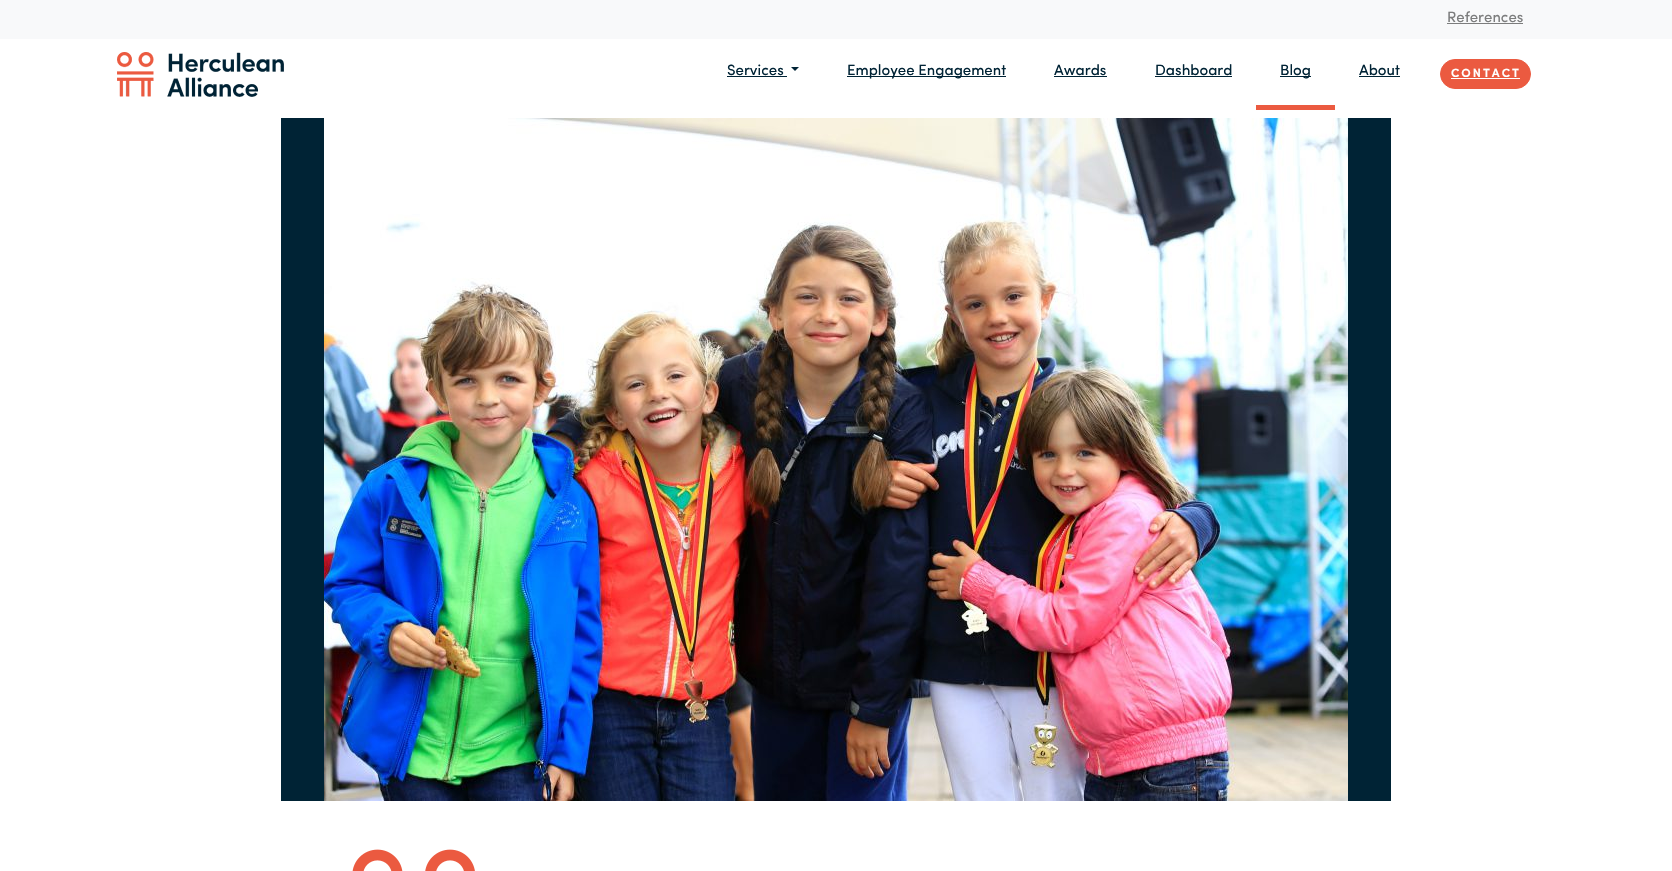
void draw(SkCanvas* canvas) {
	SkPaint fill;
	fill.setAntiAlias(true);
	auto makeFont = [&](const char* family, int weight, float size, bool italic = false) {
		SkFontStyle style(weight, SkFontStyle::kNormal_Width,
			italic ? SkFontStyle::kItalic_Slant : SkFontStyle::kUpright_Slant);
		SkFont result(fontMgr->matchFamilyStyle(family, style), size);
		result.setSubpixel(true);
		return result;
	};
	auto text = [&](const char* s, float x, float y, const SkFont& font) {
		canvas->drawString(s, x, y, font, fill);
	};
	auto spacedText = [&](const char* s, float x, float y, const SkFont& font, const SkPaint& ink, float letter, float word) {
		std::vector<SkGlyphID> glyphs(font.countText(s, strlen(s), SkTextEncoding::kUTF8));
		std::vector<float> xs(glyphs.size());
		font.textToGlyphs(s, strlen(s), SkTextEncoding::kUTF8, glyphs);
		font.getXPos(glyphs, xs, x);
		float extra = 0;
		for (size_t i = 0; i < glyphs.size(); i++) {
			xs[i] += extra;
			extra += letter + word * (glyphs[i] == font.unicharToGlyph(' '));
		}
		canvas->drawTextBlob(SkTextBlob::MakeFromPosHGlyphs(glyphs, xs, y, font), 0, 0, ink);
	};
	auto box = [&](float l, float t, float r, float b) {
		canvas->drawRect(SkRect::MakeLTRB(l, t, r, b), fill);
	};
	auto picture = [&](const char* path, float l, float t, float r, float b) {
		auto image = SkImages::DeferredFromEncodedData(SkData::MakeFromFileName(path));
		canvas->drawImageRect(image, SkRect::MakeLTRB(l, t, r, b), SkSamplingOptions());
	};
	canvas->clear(0xFFFFFFFF);
	fill.setColor(0xFFF8F9FA);
	box(0, 0, 1672, 39);
	fill.setColor(0xFF7C7D7D);
	box(1447, 23, 1523, 24);
	picture("image0.png", 117, 52, 284, 97);
	fill.setColor(0xFF002335);
	box(727, 76, 787, 77);
	canvas->drawPath(SkPathBuilder().moveTo(791, 67).lineTo(799, 67).lineTo(795, 71).close().detach(), fill);
	box(847, 76, 1006, 77);
	box(1054, 76, 1107, 77);
	box(1155, 76, 1232, 77);
	fill.setColor(0xFFEB5A40);
	box(1256, 105, 1335, 110);
	fill.setColor(0xFF002335);
	box(1280, 76, 1311, 77);
	box(1359, 76, 1400, 77);
	fill.setColor(0xFFEB5A40);
	canvas->drawRoundRect(SkRect::MakeLTRB(1440.5f, 59.5f, 1530.5f, 88.5f), 14.5f, 14.5f, fill);
	fill.setStyle(SkPaint::kStroke_Style);
	fill.setStrokeWidth(1);
	canvas->drawRoundRect(SkRect::MakeLTRB(1440.5f, 59.5f, 1530.5f, 88.5f), 14.5f, 14.5f, fill);
	fill.setStyle(SkPaint::kFill_Style);
	fill.setColor(0xFFFFFFFF);
	box(1451, 78, 1520, 79);
	fill.setColor(0xFF002335);
	box(281, 118, 1391, 801);
	picture("image1.png", 324, 118, 1348, 801);
	picture("image2.png", 352, 849, 475, 871);
	auto font1 = makeFont("Sofia", 400, 15);
	fill.setColor(0xFF7C7D7D);
	text("References", 1447, 22, font1);
	fill.setColor(0xFF002335);
	text("Services", 727, 75, font1);
	text("Employee Engagement", 847, 75, font1);
	text("Awards", 1054, 75, font1);
	text("Dashboard", 1155, 75, font1);
	text("Blog", 1280, 75, font1);
	text("About", 1359, 75, font1);
	auto font2 = makeFont("Sofia", 600, 12);
	fill.setColor(0xFFFFFFFF);
	spacedText("CONTACT", 1451, 77, font2, fill, 2, 0);
}
